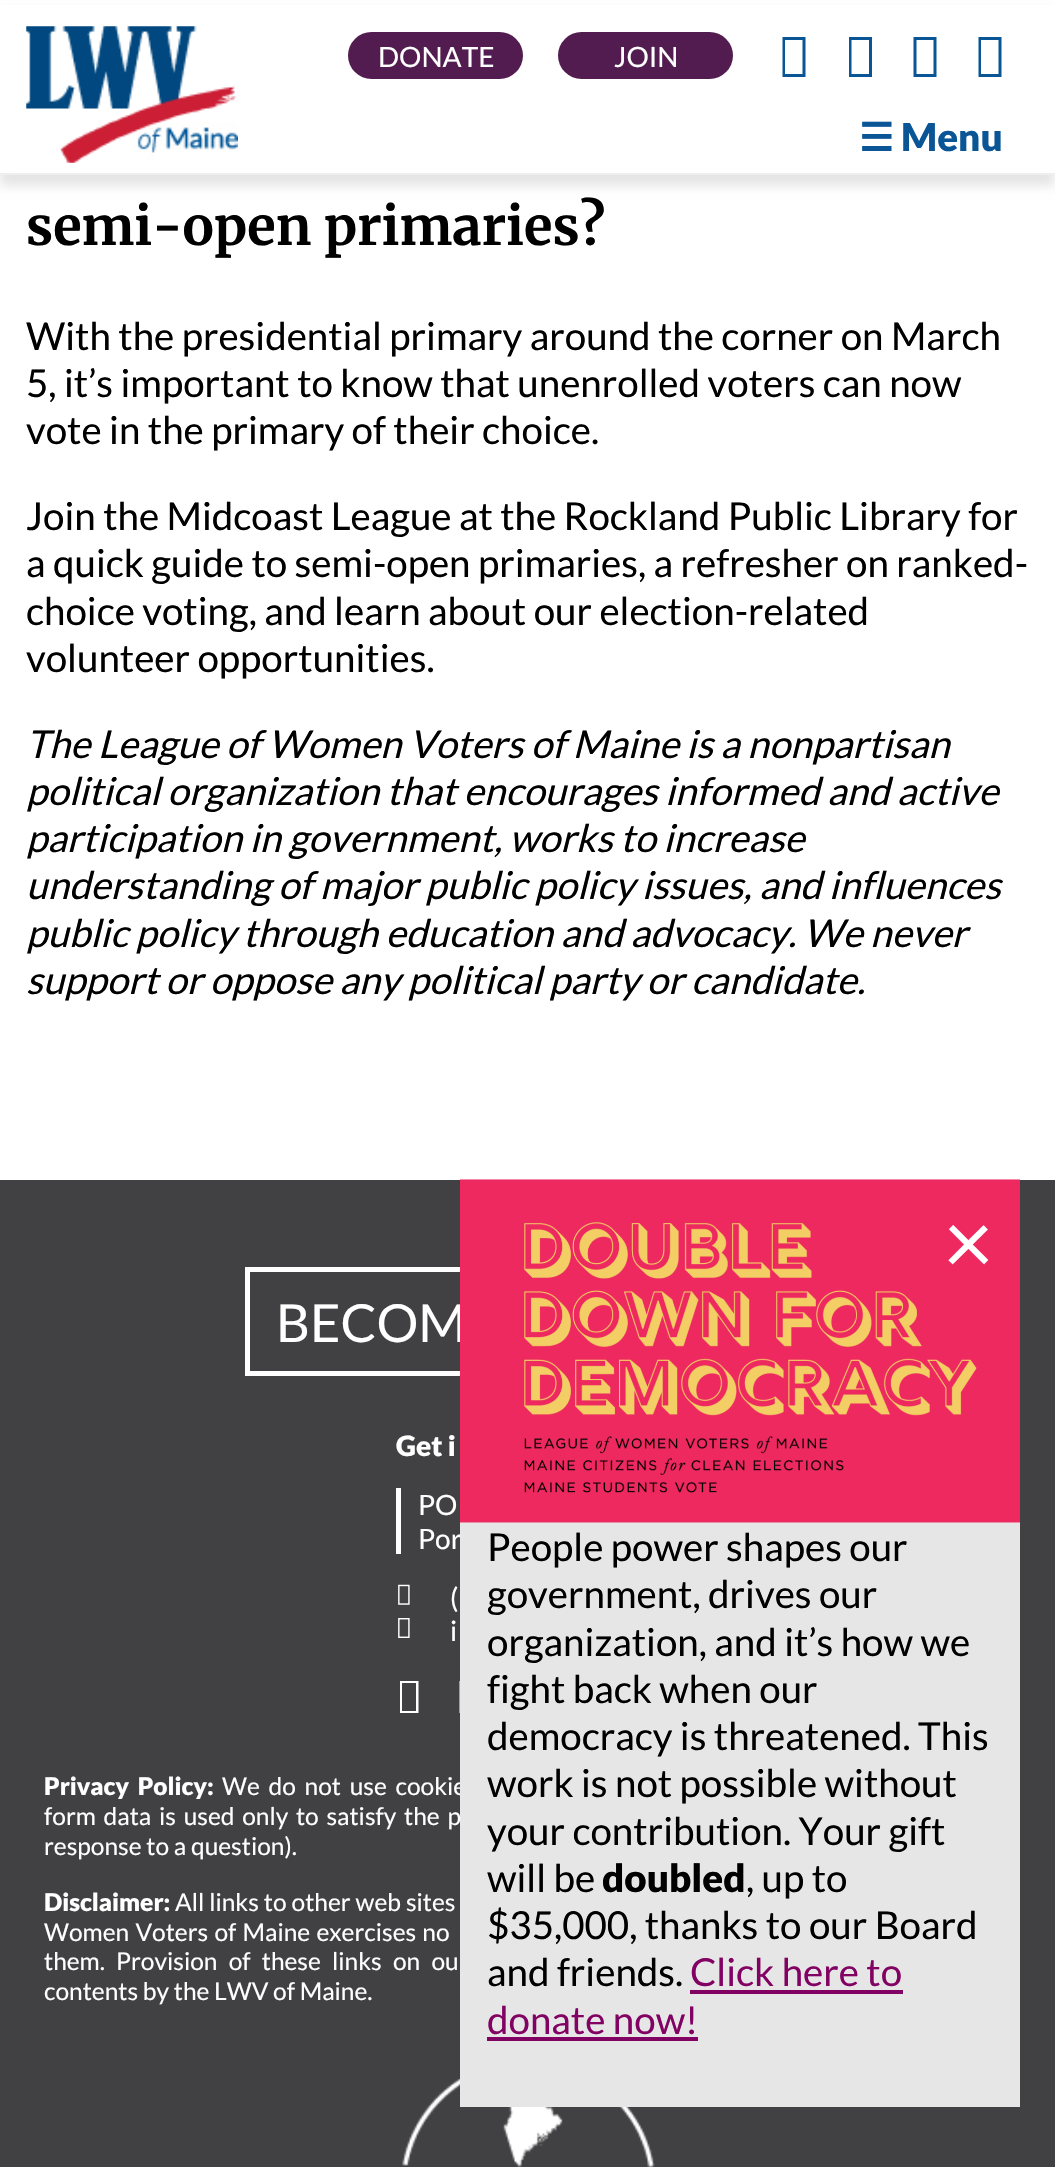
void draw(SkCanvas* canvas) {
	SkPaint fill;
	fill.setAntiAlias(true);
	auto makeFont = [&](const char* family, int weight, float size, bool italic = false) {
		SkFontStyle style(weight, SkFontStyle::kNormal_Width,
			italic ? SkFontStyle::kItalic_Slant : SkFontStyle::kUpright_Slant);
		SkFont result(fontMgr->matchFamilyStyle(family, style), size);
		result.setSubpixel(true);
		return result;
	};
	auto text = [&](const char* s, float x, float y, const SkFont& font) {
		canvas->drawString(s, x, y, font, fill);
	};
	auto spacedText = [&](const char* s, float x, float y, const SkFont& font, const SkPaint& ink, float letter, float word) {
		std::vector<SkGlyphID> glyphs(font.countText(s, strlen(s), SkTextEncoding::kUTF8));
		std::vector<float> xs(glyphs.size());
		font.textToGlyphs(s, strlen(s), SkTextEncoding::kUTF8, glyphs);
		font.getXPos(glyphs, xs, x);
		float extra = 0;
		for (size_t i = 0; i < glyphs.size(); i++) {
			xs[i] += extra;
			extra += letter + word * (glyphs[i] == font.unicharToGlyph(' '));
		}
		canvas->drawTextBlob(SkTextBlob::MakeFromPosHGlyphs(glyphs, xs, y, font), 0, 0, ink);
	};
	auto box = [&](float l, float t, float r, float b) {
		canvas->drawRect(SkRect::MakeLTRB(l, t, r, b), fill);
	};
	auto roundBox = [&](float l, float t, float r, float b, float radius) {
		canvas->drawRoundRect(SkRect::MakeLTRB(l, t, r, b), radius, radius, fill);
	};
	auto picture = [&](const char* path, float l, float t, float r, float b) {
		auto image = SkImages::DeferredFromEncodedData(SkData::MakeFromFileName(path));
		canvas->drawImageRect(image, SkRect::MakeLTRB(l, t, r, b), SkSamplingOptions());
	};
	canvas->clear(0xFFFFFFFF);
	fill.setColor(0x1A000000);
	fill.setMaskFilter(SkMaskFilter::MakeBlur(kNormal_SkBlurStyle, 5));
	canvas->drawRect(SkRect::MakeLTRB(0, 11, 1055, 186), fill);
	fill.setMaskFilter(nullptr);
	fill.setColor(0xFFFFFFFF);
	box(0, 5, 1055, 173);
	fill.setColor(0xFFEEEEEE);
	box(0, 173, 1055, 175);
	picture("image0.png", 26, 26, 238, 163);
	fill.setColor(0xFF521C50);
	roundBox(348, 32, 523, 79, 23.5f);
	roundBox(558, 32, 733, 79, 23.5f);
	fill.setColor(0xFF095596);
	canvas->drawPath(SkPathBuilder().moveTo(782.5f, 77).lineTo(782.5f, 37).lineTo(805.5f, 37).lineTo(805.5f, 77).close().moveTo(785, 74).lineTo(802.5f, 74).lineTo(802.5f, 40).lineTo(785, 40).close().detach(), fill);
	canvas->drawPath(SkPathBuilder().moveTo(849, 77).lineTo(849, 37).lineTo(872, 37).lineTo(872, 77).close().moveTo(851.5f, 74).lineTo(869, 74).lineTo(869, 40).lineTo(851.5f, 40).close().detach(), fill);
	canvas->drawPath(SkPathBuilder().moveTo(913.5f, 77).lineTo(913.5f, 37).lineTo(936.5f, 37).lineTo(936.5f, 77).close().moveTo(916.5f, 74).lineTo(933.5f, 74).lineTo(933.5f, 40).lineTo(916.5f, 40).close().detach(), fill);
	canvas->drawPath(SkPathBuilder().moveTo(978.5f, 77).lineTo(978.5f, 37).lineTo(1001.5f, 37).lineTo(1001.5f, 77).close().moveTo(981, 74).lineTo(998.5f, 74).lineTo(998.5f, 40).lineTo(981, 40).close().detach(), fill);
	fill.setColor(0xFF414042);
	box(0, 1180, 1055, 2167);
	fill.setStyle(SkPaint::kStroke_Style);
	fill.setStrokeWidth(5);
	fill.setColor(0xFFFFFFFF);
	canvas->drawRect(SkRect::MakeLTRB(247.5f, 1269.5f, 807.5f, 1373.5f), fill);
	fill.setStyle(SkPaint::kFill_Style);
	box(396, 1488, 401, 1554);
	picture("image2.png", 398, 1584, 410, 1605);
	picture("image3.png", 398, 1618, 410, 1638);
	canvas->drawPath(SkPathBuilder().moveTo(400, 1713).lineTo(400, 1681).lineTo(418.5f, 1681).lineTo(418.5f, 1713).close().moveTo(402, 1711).lineTo(416, 1711).lineTo(416, 1683).lineTo(402, 1683).close().detach(), fill);
	canvas->drawPath(SkPathBuilder().moveTo(459.5f, 1713).lineTo(459.5f, 1681).lineTo(478, 1681).lineTo(478, 1713).close().moveTo(461.5f, 1711).lineTo(475.5f, 1711).lineTo(475.5f, 1683).lineTo(461.5f, 1683).close().detach(), fill);
	picture("image4.png", 402, 2078, 655, 2167);
	auto font1 = makeFont("Lato", 400, 28);
	text("DONATE", 378, 67, font1);
	text("JOIN", 614, 67, font1);
	auto font2 = makeFont("DejaVu Sans", 700, 38.5f);
	fill.setColor(0xFF095596);
	text("☰", 859, 151, font2);
	auto font3 = makeFont("Lato", 900, 38.5f);
	text("Menu", 901, 151, font3);
	auto font4 = makeFont("Merriweather", 700, 52.5f);
	fill.setColor(0xFF000000);
	text("semi-open primaries?", 26, 245, font4);
	auto font5 = makeFont("Lato", 400, 38.5f);
	text("With the presidential primary around the corner on March", 26, 350, font5);
	text("5, it’s important to know that unenrolled voters can now", 26, 397, font5);
	text("vote in the primary of their choice.", 26, 444, font5);
	text("Join the Midcoast League at the Rockland Public Library for", 26, 530, font5);
	text("a quick guide to semi-open primaries, a refresher on ranked-", 26, 577, font5);
	text("choice voting, and learn about our election-related", 26, 625, font5);
	text("volunteer opportunities.", 26, 672, font5);
	auto font6 = makeFont("Lato", 400, 38.5f, true);
	text("The League of Women Voters of Maine is a nonpartisan", 26, 758, font6);
	text("political organization that encourages informed and active", 26, 805, font6);
	text("participation in government, works to increase", 26, 852, font6);
	text("understanding of major public policy issues, and influences", 26, 899, font6);
	text("public policy through education and advocacy. We never", 26, 947, font6);
	text("support or oppose any political party or candidate.", 26, 994, font6);
	auto font7 = makeFont("Lato", 400, 52.5f);
	fill.setColor(0xFFFFFFFF);
	text("BECOM", 276, 1342, font7);
	auto font8 = makeFont("Lato", 900, 28);
	text("Get i", 396, 1456, font8);
	text("PO", 418, 1515, font1);
	text("Por", 418, 1549, font1);
	text("(", 450, 1608, font1);
	text("i", 450, 1641, font1);
	auto font9 = makeFont("Lato", 900, 24.5f);
	spacedText("Privacy Policy:", 44, 1795, font9, fill, 0, 4);
	auto font10 = makeFont("Lato", 400, 24.5f);
	spacedText("We do not use cookie", 222, 1795, font10, fill, 0, 4);
	fill.setColor(0xFFE6E6E6);
	box(460, 1522, 1020, 2107);
	picture("image1.png", 460, 1179, 1020, 1523);
	auto font11 = makeFont("Lato", 400, 88);
	fill.setColor(0xFFFFFFFF);
	text("×", 943, 1274, font11);
	fill.setColor(0xFF820263);
	text("donate now!", 487, 2034, font5);
	box(487, 2037, 698, 2041);
	text("Click here to", 690, 1986, font5);
	box(690, 1990, 903, 1994);
	fill.setColor(0xFF000000);
	text("and friends.", 487, 1986, font5);
	text("$35,000, thanks to our Board", 487, 1939, font5);
	text(", up to", 746, 1892, font5);
	text("doubled", 602, 1892, font3);
	text("will be", 487, 1892, font5);
	text("your contribution. Your gift", 487, 1845, font5);
	text("work is not possible without", 487, 1797, font5);
	text("democracy is threatened. This", 487, 1750, font5);
	text("fight back when our", 487, 1703, font5);
	text("organization, and it’s how we", 487, 1656, font5);
	text("government, drives our", 487, 1608, font5);
	text("People power shapes our", 487, 1561, font5);
	fill.setColor(0xFFFFFFFF);
	spacedText("form data is used only to satisfy the p", 44, 1825, font10, fill, 0, 3);
	text("response to a question).", 44, 1855, font10);
	text("Disclaimer:", 44, 1911, font9);
	spacedText("All links to other web sites", 175, 1911, font10, fill, 0, 0.25f);
	spacedText("Women Voters of Maine exercises no", 44, 1941, font10, fill, 0, 1.5f);
	text("them.", 44, 1970, font10);
	spacedText("Provision of these links on ou", 116, 1970, font10, fill, 0, 6.5f);
	text("contents by the LWV of Maine.", 44, 2000, font10);
}
